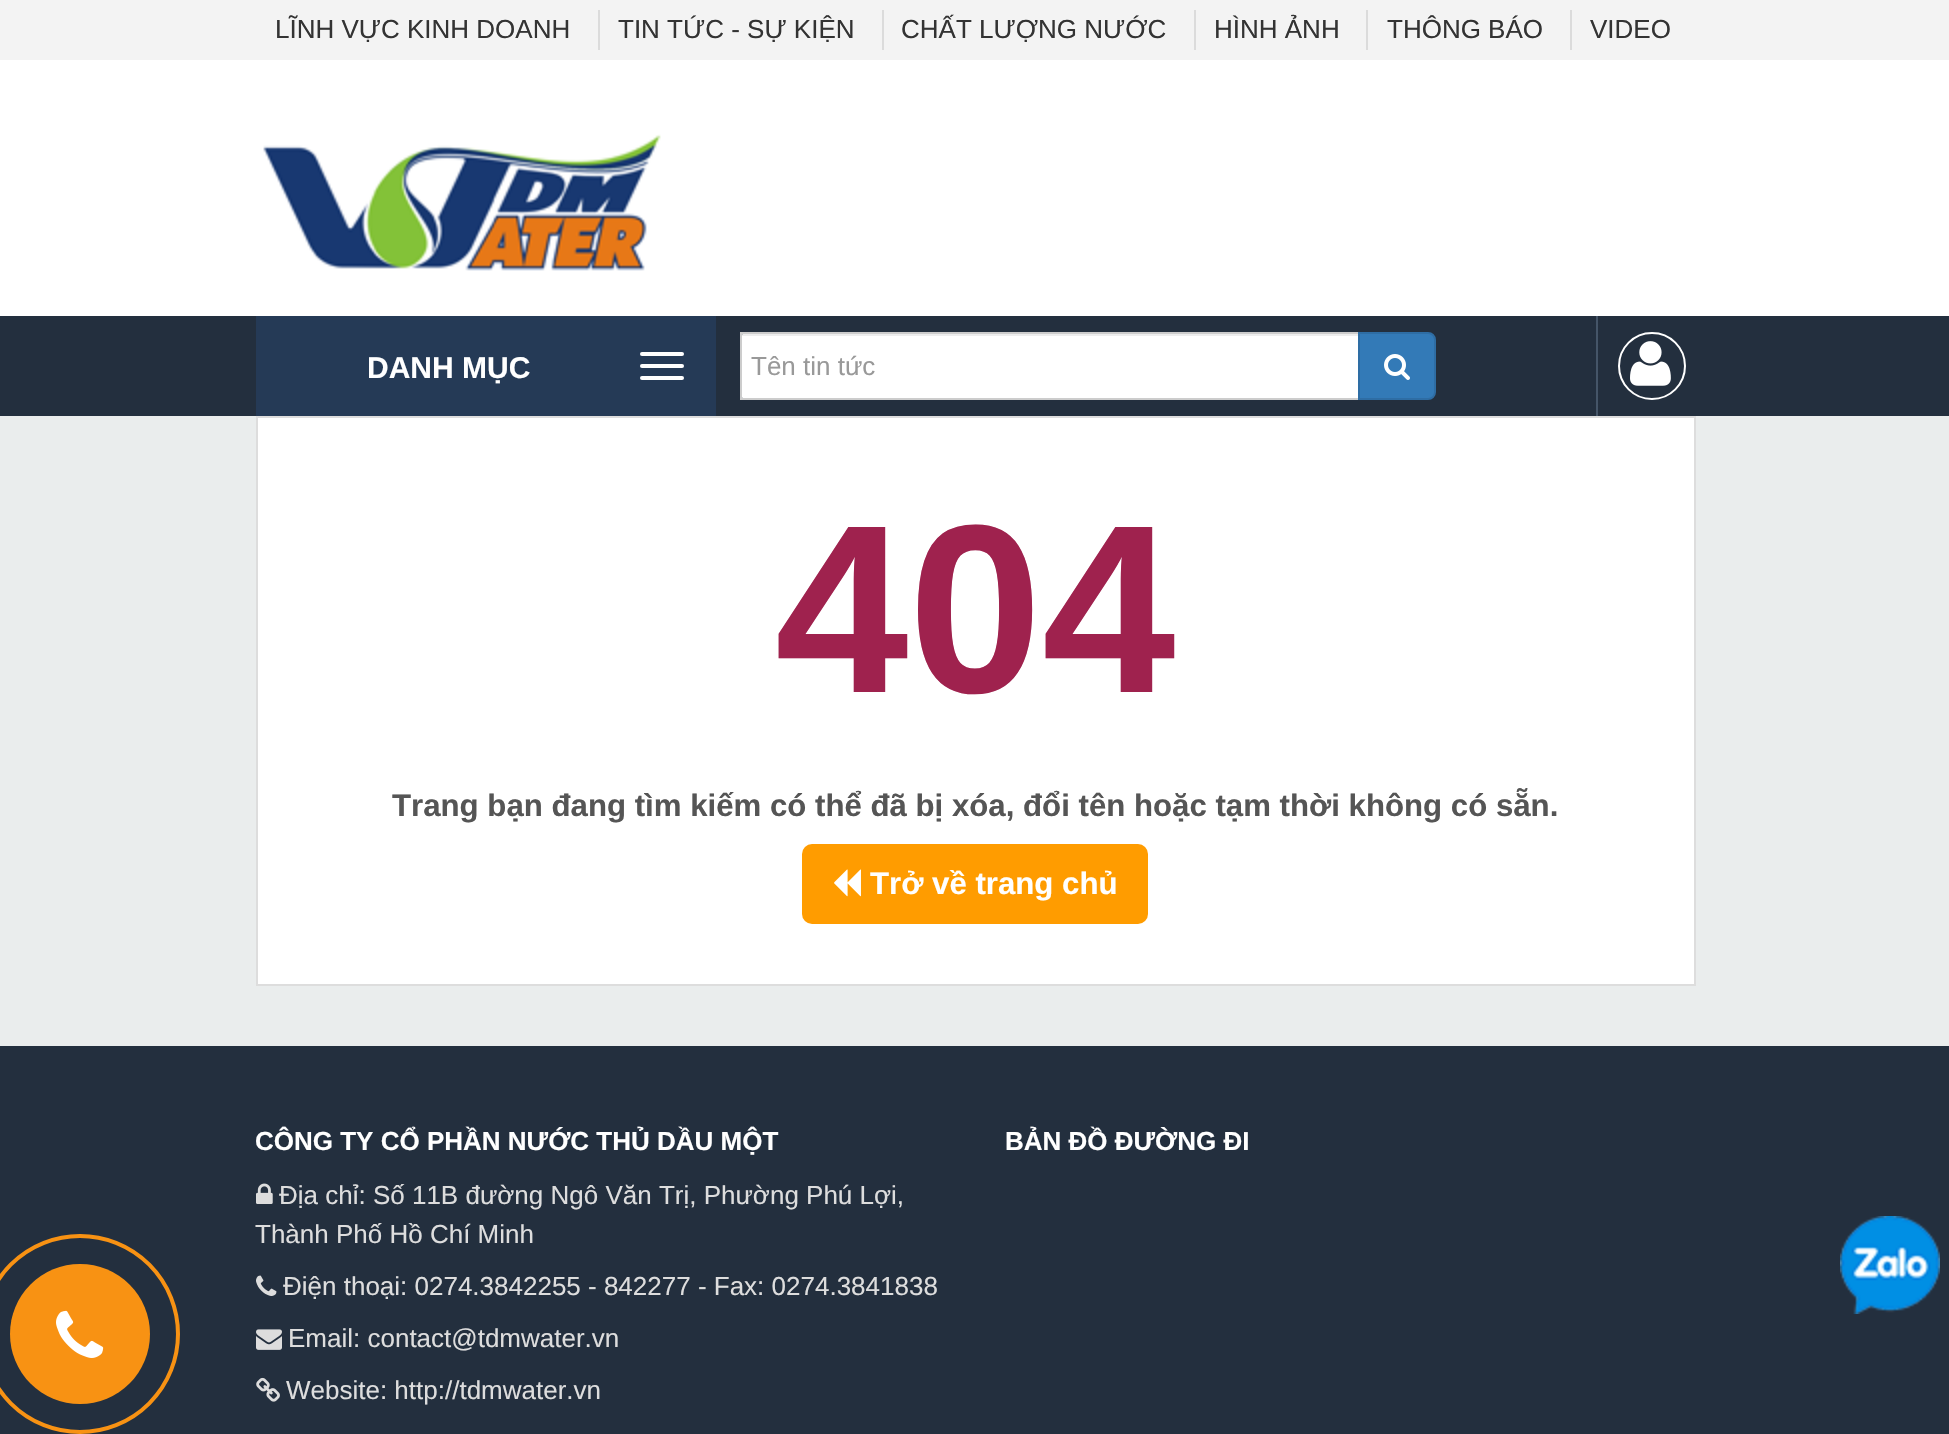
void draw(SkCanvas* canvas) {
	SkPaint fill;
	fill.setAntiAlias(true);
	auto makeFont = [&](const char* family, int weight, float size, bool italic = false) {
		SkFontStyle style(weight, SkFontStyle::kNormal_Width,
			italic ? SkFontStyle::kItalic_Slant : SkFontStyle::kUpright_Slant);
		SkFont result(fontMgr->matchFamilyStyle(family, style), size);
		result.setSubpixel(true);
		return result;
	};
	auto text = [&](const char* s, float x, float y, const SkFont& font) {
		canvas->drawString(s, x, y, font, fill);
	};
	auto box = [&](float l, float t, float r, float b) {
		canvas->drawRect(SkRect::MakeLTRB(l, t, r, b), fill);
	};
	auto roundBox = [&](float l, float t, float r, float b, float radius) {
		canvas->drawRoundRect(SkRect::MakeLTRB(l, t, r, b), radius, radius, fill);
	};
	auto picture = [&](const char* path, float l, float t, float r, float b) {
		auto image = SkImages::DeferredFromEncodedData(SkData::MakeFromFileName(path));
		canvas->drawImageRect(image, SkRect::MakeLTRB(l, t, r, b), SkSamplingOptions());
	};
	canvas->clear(0xFFEAEDED);
	fill.setColor(0xFFF3F3F3);
	box(0, 0, 1949, 60);
	fill.setColor(0xFFDBDBDB);
	box(598, 10, 600, 50);
	box(882, 10, 884, 50);
	box(1194, 10, 1196, 50);
	box(1366, 10, 1368, 50);
	box(1570, 10, 1572, 50);
	fill.setColor(0xFFFFFFFF);
	box(0, 60, 1949, 316);
	fill.setColor(0xFF232F3E);
	box(0, 316, 1949, 416);
	fill.setColor(0xFF253A56);
	box(256, 316, 716, 416);
	fill.setColor(0xFFFFFFFF);
	roundBox(640, 352, 684, 356, 2);
	roundBox(640, 364, 684, 368, 2);
	roundBox(640, 376, 684, 380, 2);
	picture("image0.png", 263, 134, 661, 271);
	canvas->drawPath(SkPathBuilder().moveTo(748, 332).lineTo(1360, 332).lineTo(1360, 400).lineTo(748, 400).cubicTo(743.5f, 400, 740, 396.5f, 740, 392).lineTo(740, 340).cubicTo(740, 335.5f, 743.5f, 332, 748, 332).close().detach(), fill);
	fill.setColor(0x12000000);
	box(742, 334, 1358, 336);
	fill.setStyle(SkPaint::kStroke_Style);
	fill.setStrokeWidth(2);
	fill.setColor(0xFFCCCCCC);
	canvas->drawRect(SkRect::MakeLTRB(741, 333, 1359, 399), fill);
	fill.setStyle(SkPaint::kFill_Style);
	fill.setColor(0xFF337AB7);
	canvas->drawPath(SkPathBuilder().moveTo(1359, 333).lineTo(1428, 333).cubicTo(1432, 333, 1435, 336, 1435, 340).lineTo(1435, 392).cubicTo(1435, 396, 1432, 399, 1428, 399).lineTo(1359, 399).close().detach(), fill);
	fill.setStyle(SkPaint::kStroke_Style);
	fill.setColor(0xFF2E6DA4);
	canvas->drawPath(SkPathBuilder().moveTo(1359, 333).lineTo(1428, 333).cubicTo(1432, 333, 1435, 336, 1435, 340).lineTo(1435, 392).cubicTo(1435, 396, 1432, 399, 1428, 399).lineTo(1359, 399).close().detach(), fill);
	picture("image1.png", 1384, 354, 1410, 380);
	fill.setStyle(SkPaint::kFill_Style);
	fill.setColor(0xFF455568);
	box(1596, 316, 1598, 416);
	fill.setStyle(SkPaint::kStroke_Style);
	fill.setColor(0xFFFFFFFF);
	canvas->drawCircle(1652, 366, 33, fill);
	picture("image2.png", 1630, 341, 1671, 386);
	fill.setStyle(SkPaint::kFill_Style);
	canvas->drawRect(SkRect::MakeLTRB(257, 417, 1695, 985), fill);
	fill.setStyle(SkPaint::kStroke_Style);
	fill.setColor(0xFFDDDDDD);
	canvas->drawRect(SkRect::MakeLTRB(257, 417, 1695, 985), fill);
	fill.setStyle(SkPaint::kFill_Style);
	fill.setColor(0xFFFF9C00);
	roundBox(802, 844, 1148, 924, 10);
	picture("image3.png", 834, 869, 861, 897);
	fill.setColor(0xFF232F3E);
	box(0, 1046, 1949, 1434);
	fill.setStyle(SkPaint::kStroke_Style);
	fill.setStrokeWidth(4);
	fill.setColor(0xFFF89213);
	canvas->drawCircle(80, 1334, 98, fill);
	fill.setStyle(SkPaint::kFill_Style);
	canvas->drawCircle(80, 1334, 70, fill);
	picture("image4.png", 56, 1310, 104, 1358);
	picture("image5.png", 256, 1183, 273, 1204);
	picture("image6.png", 256, 1275, 277, 1296);
	picture("image7.png", 256, 1329, 282, 1350);
	picture("image8.png", 256, 1377, 280, 1402);
	picture("image9.png", 1840, 1216, 1940, 1314);
	auto font1 = makeFont("Liberation Sans", 400, 26);
	fill.setColor(0xFF333333);
	text("LĨNH VỰC KINH DOANH", 275, 38, font1);
	text("TIN TỨC - SỰ KIỆN", 618, 38, font1);
	text("CHẤT LƯỢNG NƯỚC", 901, 38, font1);
	text("HÌNH ẢNH", 1214, 38, font1);
	text("THÔNG BÁO", 1387, 38, font1);
	text("VIDEO", 1590, 38, font1);
	auto font2 = makeFont("Liberation Sans", 700, 30);
	fill.setColor(0xFFFFFFFF);
	text("DANH MỤC", 367, 378, font2);
	fill.setColor(0xFF999999);
	text("Tên tin tức", 751, 375, font1);
	auto font3 = makeFont("Liberation Sans", 700, 240);
	fill.setColor(0xFF9F224E);
	text("404", 775, 692, font3);
	auto font4 = makeFont("Liberation Sans", 700, 31.2f);
	fill.setColor(0xFF555555);
	text("Trang bạn đang tìm kiếm có thể đã bị xóa, đổi tên hoặc tạm thời không có sẵn.", 392, 816, font4);
	fill.setColor(0xFFFFFFFF);
	text("Trở về trang chủ", 870, 894, font4);
	auto font5 = makeFont("Liberation Sans", 700, 26);
	text("CÔNG TY CỔ PHẦN NƯỚC THỦ DẦU MỘT", 255, 1150, font5);
	fill.setColor(0xFFDDDDDD);
	text("Địa chỉ: Số 11B đường Ngô Văn Trị, Phường Phú Lợi,", 279, 1204, font1);
	text("Thành Phố Hồ Chí Minh", 255, 1243, font1);
	text("Điện thoại: 0274.3842255 - 842277 - Fax: 0274.3841838", 283, 1295, font1);
	text("Email: contact@tdmwater.vn", 288, 1347, font1);
	text("Website: http://tdmwater.vn", 286, 1399, font1);
	fill.setColor(0xFFFFFFFF);
	text("BẢN ĐỒ ĐƯỜNG ĐI", 1005, 1150, font5);
}
